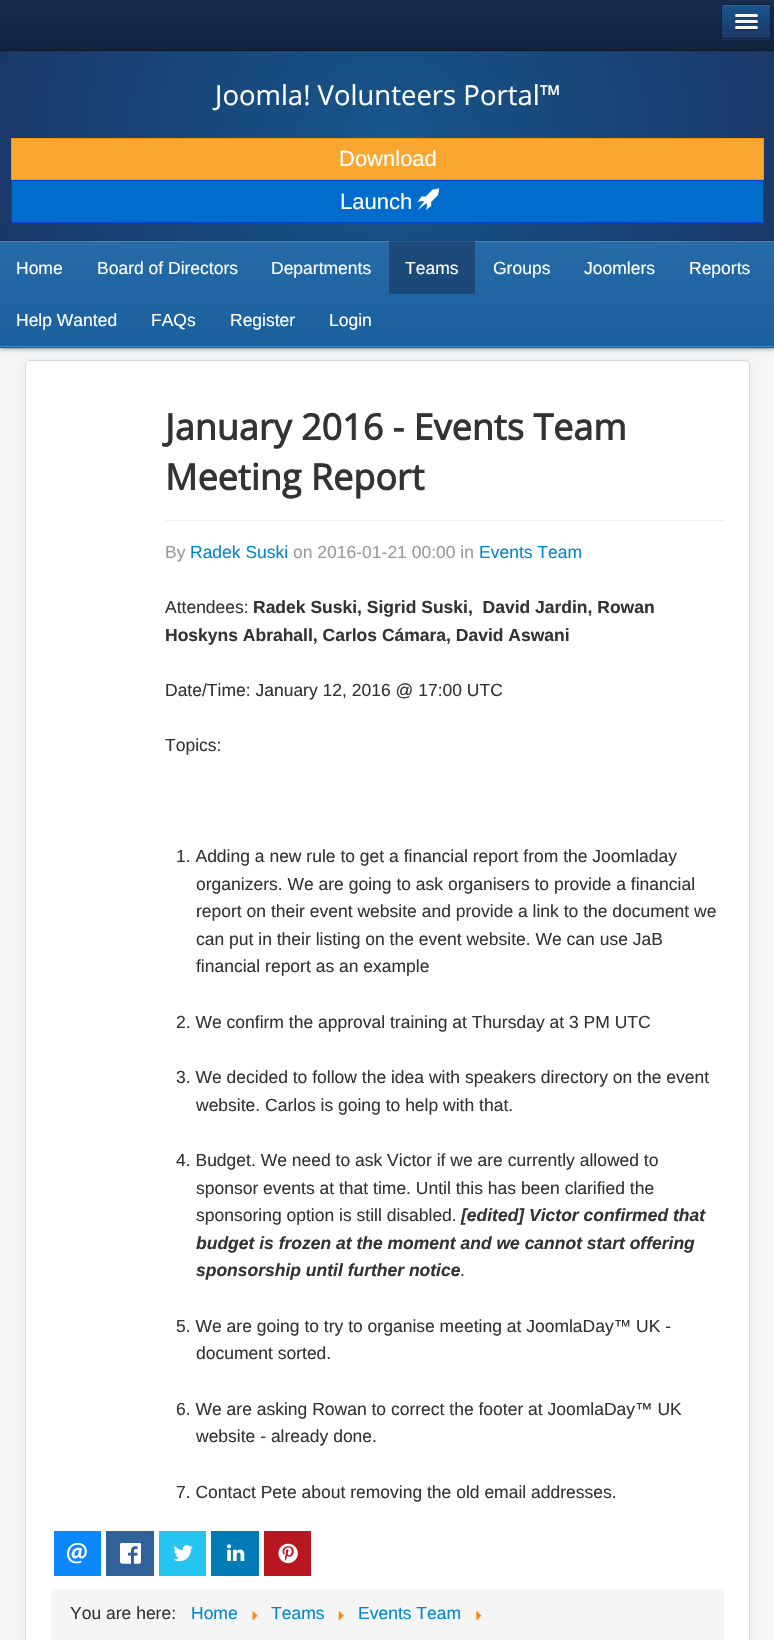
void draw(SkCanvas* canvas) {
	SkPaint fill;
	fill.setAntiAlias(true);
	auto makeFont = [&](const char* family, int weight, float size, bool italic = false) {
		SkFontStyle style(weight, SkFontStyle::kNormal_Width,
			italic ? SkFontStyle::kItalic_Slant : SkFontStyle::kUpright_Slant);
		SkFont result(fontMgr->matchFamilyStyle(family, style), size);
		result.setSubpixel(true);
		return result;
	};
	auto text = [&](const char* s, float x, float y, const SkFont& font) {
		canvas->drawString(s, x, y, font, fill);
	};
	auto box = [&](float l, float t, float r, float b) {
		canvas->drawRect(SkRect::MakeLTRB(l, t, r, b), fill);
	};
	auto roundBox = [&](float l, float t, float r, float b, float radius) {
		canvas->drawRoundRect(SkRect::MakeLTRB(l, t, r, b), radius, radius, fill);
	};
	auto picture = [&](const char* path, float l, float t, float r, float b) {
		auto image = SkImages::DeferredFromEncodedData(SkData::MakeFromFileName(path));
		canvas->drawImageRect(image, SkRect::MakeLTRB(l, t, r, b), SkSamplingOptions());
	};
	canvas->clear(0xFFF4F6F7);
	{
		const SkColor colors[] = {0xFF192C4A, 0xFF10223E};
		const float stops[] = {0, 1};
		const SkPoint ends[] = {{388, 0}, {388, 50}};
		fill.setShader(SkGradientShader::MakeLinear(ends, colors, stops, 2, SkTileMode::kClamp));
		fill.setAlpha(255);
	}
	box(0, 0, 774, 50);
	fill.setShader(nullptr);
	fill.setColor(0xFF0B172A);
	box(0, 50, 774, 51);
	fill.setColor(0xFF24344F);
	canvas->drawPath(SkPathBuilder().moveTo(721, 5).lineTo(721, 40).lineTo(771, 40).lineTo(771, 39).lineTo(721, 39).close().detach(), fill);
	{
		const SkColor colors[] = {0xFF17568C, 0xFF1A3867};
		const float stops[] = {0, 1};
		const SkPoint ends[] = {{746, 5}, {746, 38}};
		fill.setShader(SkGradientShader::MakeLinear(ends, colors, stops, 2, SkTileMode::kClamp));
		fill.setAlpha(255);
	}
	box(722, 5, 770, 38);
	fill.setShader(nullptr);
	fill.setColor(0xFF2E6797);
	box(723, 5, 770, 6);
	fill.setStyle(SkPaint::kStroke_Style);
	fill.setStrokeWidth(1);
	fill.setColor(0xFF0D2242);
	canvas->drawRect(SkRect::MakeLTRB(721.5f, 4.5f, 770.5f, 38.5f), fill);
	fill.setStyle(SkPaint::kFill_Style);
	fill.setColor(0xFF12395F);
	canvas->drawPath(SkPathBuilder().moveTo(735, 15.5f).cubicTo(733.5f, 18.5f, 739.5f, 18, 740, 18).lineTo(753, 18).cubicTo(754, 18, 757.5f, 19, 758, 17).cubicTo(758, 16.5f, 758, 15.5f, 757.5f, 15.5f).lineTo(756.5f, 16).lineTo(736, 16).close().detach(), fill);
	fill.setColor(0xFFF5F5F5);
	roundBox(735, 14, 758, 17, 1.5f);
	fill.setColor(0xFF133459);
	canvas->drawPath(SkPathBuilder().moveTo(735, 22).cubicTo(734, 24.5f, 739, 24, 740, 24).lineTo(753, 24).cubicTo(754, 24, 757.5f, 25, 758, 23).cubicTo(758, 22.5f, 758, 21.5f, 757.5f, 21.5f).cubicTo(757.5f, 22, 757, 22.5f, 756, 22.5f).lineTo(736, 22.5f).cubicTo(736, 22.5f, 735.5f, 22, 735, 22).close().detach(), fill);
	fill.setColor(0xFFF5F5F5);
	roundBox(735, 20, 758, 23, 1.5f);
	fill.setColor(0x40000000);
	canvas->drawPath(SkPathBuilder().moveTo(735.5f, 28.5f).lineTo(735, 30).cubicTo(735.5f, 32, 739, 31, 740, 31).lineTo(743, 31).cubicTo(745, 31, 756.5f, 31.5f, 757.5f, 30.5f).cubicTo(758, 30, 758, 29, 757.5f, 28).lineTo(756.5f, 28.5f).cubicTo(754.5f, 29, 736, 29, 735.5f, 28.5f).close().detach(), fill);
	fill.setColor(0xFFF5F5F5);
	roundBox(735, 26, 758, 29, 1.5f);
	{
		const SkColor colors[] = {0xFF17568C, 0xFF1A3867};
		const float stops[] = {0, 1};
		fill.setShader(SkGradientShader::MakeRadial({388, 146}, 399, colors, stops, 2, SkTileMode::kClamp));
		fill.setAlpha(255);
	}
	box(0, 51, 774, 241);
	fill.setShader(nullptr);
	fill.setColor(0xFFFAA732);
	canvas->drawRect(SkRect::MakeLTRB(11.5f, 138.5f, 763.5f, 179.5f), fill);
	fill.setStyle(SkPaint::kStroke_Style);
	fill.setColor(0xFFF89406);
	canvas->drawRect(SkRect::MakeLTRB(11.5f, 138.5f, 763.5f, 179.5f), fill);
	fill.setStyle(SkPaint::kFill_Style);
	fill.setColor(0xFF006DCC);
	canvas->drawRect(SkRect::MakeLTRB(11.5f, 180.5f, 763.5f, 222.5f), fill);
	fill.setStyle(SkPaint::kStroke_Style);
	fill.setColor(0xFF0044CC);
	canvas->drawRect(SkRect::MakeLTRB(11.5f, 180.5f, 763.5f, 222.5f), fill);
	picture("image0.png", 417, 188, 440, 210);
	fill.setStyle(SkPaint::kFill_Style);
	fill.setColor(0x33000000);
	fill.setMaskFilter(SkMaskFilter::MakeBlur(kNormal_SkBlurStyle, 0.5f));
	canvas->drawRect(SkRect::MakeLTRB(0, 241, 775, 348), fill);
	fill.setMaskFilter(nullptr);
	fill.setColor(0x66000000);
	fill.setMaskFilter(SkMaskFilter::MakeBlur(kNormal_SkBlurStyle, 2));
	canvas->drawRect(SkRect::MakeLTRB(0, 243, 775, 349), fill);
	fill.setMaskFilter(nullptr);
	fill.setColor(0x0D000000);
	fill.setMaskFilter(SkMaskFilter::MakeBlur(kNormal_SkBlurStyle, 4));
	canvas->drawRoundRect(SkRect::MakeLTRB(25, 360, 750, 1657), 5, 5, fill);
	fill.setMaskFilter(nullptr);
	{
		const SkColor colors[] = {0xFF1A609D, 0xFF266BA7};
		const float stops[] = {0, 1};
		const SkPoint ends[] = {{388, 348}, {388, 241}};
		fill.setShader(SkGradientShader::MakeLinear(ends, colors, stops, 2, SkTileMode::kClamp));
		fill.setAlpha(255);
	}
	box(0, 242, 774, 348);
	fill.setShader(nullptr);
	fill.setColor(0xFF368AD8);
	box(0, 346, 774, 347);
	fill.setColor(0xFF2F89D3);
	box(0, 241, 774, 242);
	fill.setColor(0x80132A4C);
	box(389, 241, 475, 294);
	fill.setColor(0xFFFFFFFF);
	roundBox(25, 360, 750, 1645, 5);
	fill.setStyle(SkPaint::kStroke_Style);
	fill.setColor(0x26000000);
	canvas->drawRoundRect(SkRect::MakeLTRB(25.5f, 360.5f, 749.5f, 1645.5f), 4.5f, 4.5f, fill);
	fill.setStyle(SkPaint::kFill_Style);
	fill.setColor(0xFFEEEEEE);
	box(165, 520, 724, 521);
	fill.setColor(0xFF0A88FF);
	box(54, 1531, 101, 1576);
	picture("image1.png", 66, 1543, 87, 1564);
	fill.setColor(0xFF306199);
	box(106, 1531, 154, 1576);
	picture("image2.png", 120, 1543, 141, 1564);
	fill.setColor(0xFF26C4F1);
	box(159, 1531, 206, 1576);
	picture("image3.png", 173, 1545, 193, 1562);
	fill.setColor(0xFF007BB6);
	box(211, 1531, 259, 1576);
	picture("image4.png", 227, 1544, 245, 1561);
	fill.setColor(0xFFB81621);
	box(264, 1531, 311, 1576);
	picture("image5.png", 278, 1543, 298, 1564);
	fill.setColor(0xFFF5F5F5);
	roundBox(51, 1589, 724, 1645, 5);
	picture("image6.png", 252, 1611, 258, 1620);
	picture("image7.png", 338, 1611, 344, 1620);
	picture("image8.png", 476, 1611, 482, 1620);
	auto font1 = makeFont("Open Sans", 400, 27.5f);
	fill.setColor(0xFFFFFFFF);
	text("Joomla! Volunteers Portal™", 215, 105, font1);
	auto font2 = makeFont("Liberation Sans", 400, 22);
	text("Download", 339, 166, font2);
	text("Launch", 340, 209, font2);
	auto font3 = makeFont("Liberation Sans", 400, 17.5f);
	text("Home", 16, 274, font3);
	text("Board of Directors", 97, 274, font3);
	text("Departments", 271, 274, font3);
	text("Teams", 405, 274, font3);
	text("Groups", 493, 274, font3);
	text("Joomlers", 584, 274, font3);
	text("Reports", 689, 274, font3);
	text("Help Wanted", 16, 326, font3);
	text("FAQs", 151, 326, font3);
	text("Register", 230, 326, font3);
	text("Login", 329, 326, font3);
	auto font4 = makeFont("Open Sans", 700, 36);
	fill.setColor(0xFF333333);
	text("January 2016 - Events Team", 165, 440, font4);
	text("Meeting Report", 165, 490, font4);
	fill.setColor(0xFF999999);
	text("By", 165, 558, font3);
	fill.setColor(0xFF0088CC);
	text("Radek Suski", 190, 558, font3);
	fill.setColor(0xFF999999);
	text("on 2016-01-21 00:00 in", 293, 558, font3);
	fill.setColor(0xFF0088CC);
	text("Events Team", 479, 558, font3);
	fill.setColor(0xFF333333);
	text("Attendees:", 165, 613, font3);
	auto font5 = makeFont("Liberation Sans", 700, 17.5f);
	text("Radek Suski, Sigrid Suski,  David Jardin, Rowan", 253, 613, font5);
	text("Hoskyns Abrahall, Carlos Cámara, David Aswani", 165, 641, font5);
	text("Date/Time: January 12, 2016 @ 17:00 UTC", 165, 696, font3);
	text("Topics:", 165, 751, font3);
	text("1. Adding a new rule to get a financial report from the Joomladay", 176, 862, font3);
	text("organizers. We are going to ask organisers to provide a financial", 196, 890, font3);
	text("report on their event website and provide a link to the document we", 196, 917, font3);
	text("can put in their listing on the event website. We can use JaB", 196, 945, font3);
	text("financial report as an example", 196, 972, font3);
	text("2. We confirm the approval training at Thursday at 3 PM UTC", 176, 1028, font3);
	text("3. We decided to follow the idea with speakers directory on the event", 176, 1083, font3);
	text("website. Carlos is going to help with that.", 196, 1111, font3);
	text("4. Budget. We need to ask Victor if we are currently allowed to", 176, 1166, font3);
	text("sponsor events at that time. Until this has been clarified the", 196, 1194, font3);
	text("sponsoring option is still disabled.", 196, 1221, font3);
	auto font6 = makeFont("Liberation Sans", 700, 17.5f, true);
	text("[edited] Victor confirmed that", 461, 1221, font6);
	text("budget is frozen at the moment and we cannot start offering", 196, 1249, font6);
	text("sponsorship until further notice", 196, 1276, font6);
	text(".", 460, 1276, font3);
	text("5. We are going to try to organise meeting at JoomlaDay™ UK -", 176, 1332, font3);
	text("document sorted.", 196, 1359, font3);
	text("6. We are asking Rowan to correct the footer at JoomlaDay™ UK", 176, 1415, font3);
	text("website - already done.", 196, 1442, font3);
	text("7. Contact Pete about removing the old email addresses.", 176, 1498, font3);
	text("You are here:", 70, 1619, font3);
	fill.setColor(0xFF0088CC);
	text("Home", 191, 1619, font3);
	text("Teams", 271, 1619, font3);
	text("Events Team", 358, 1619, font3);
}
